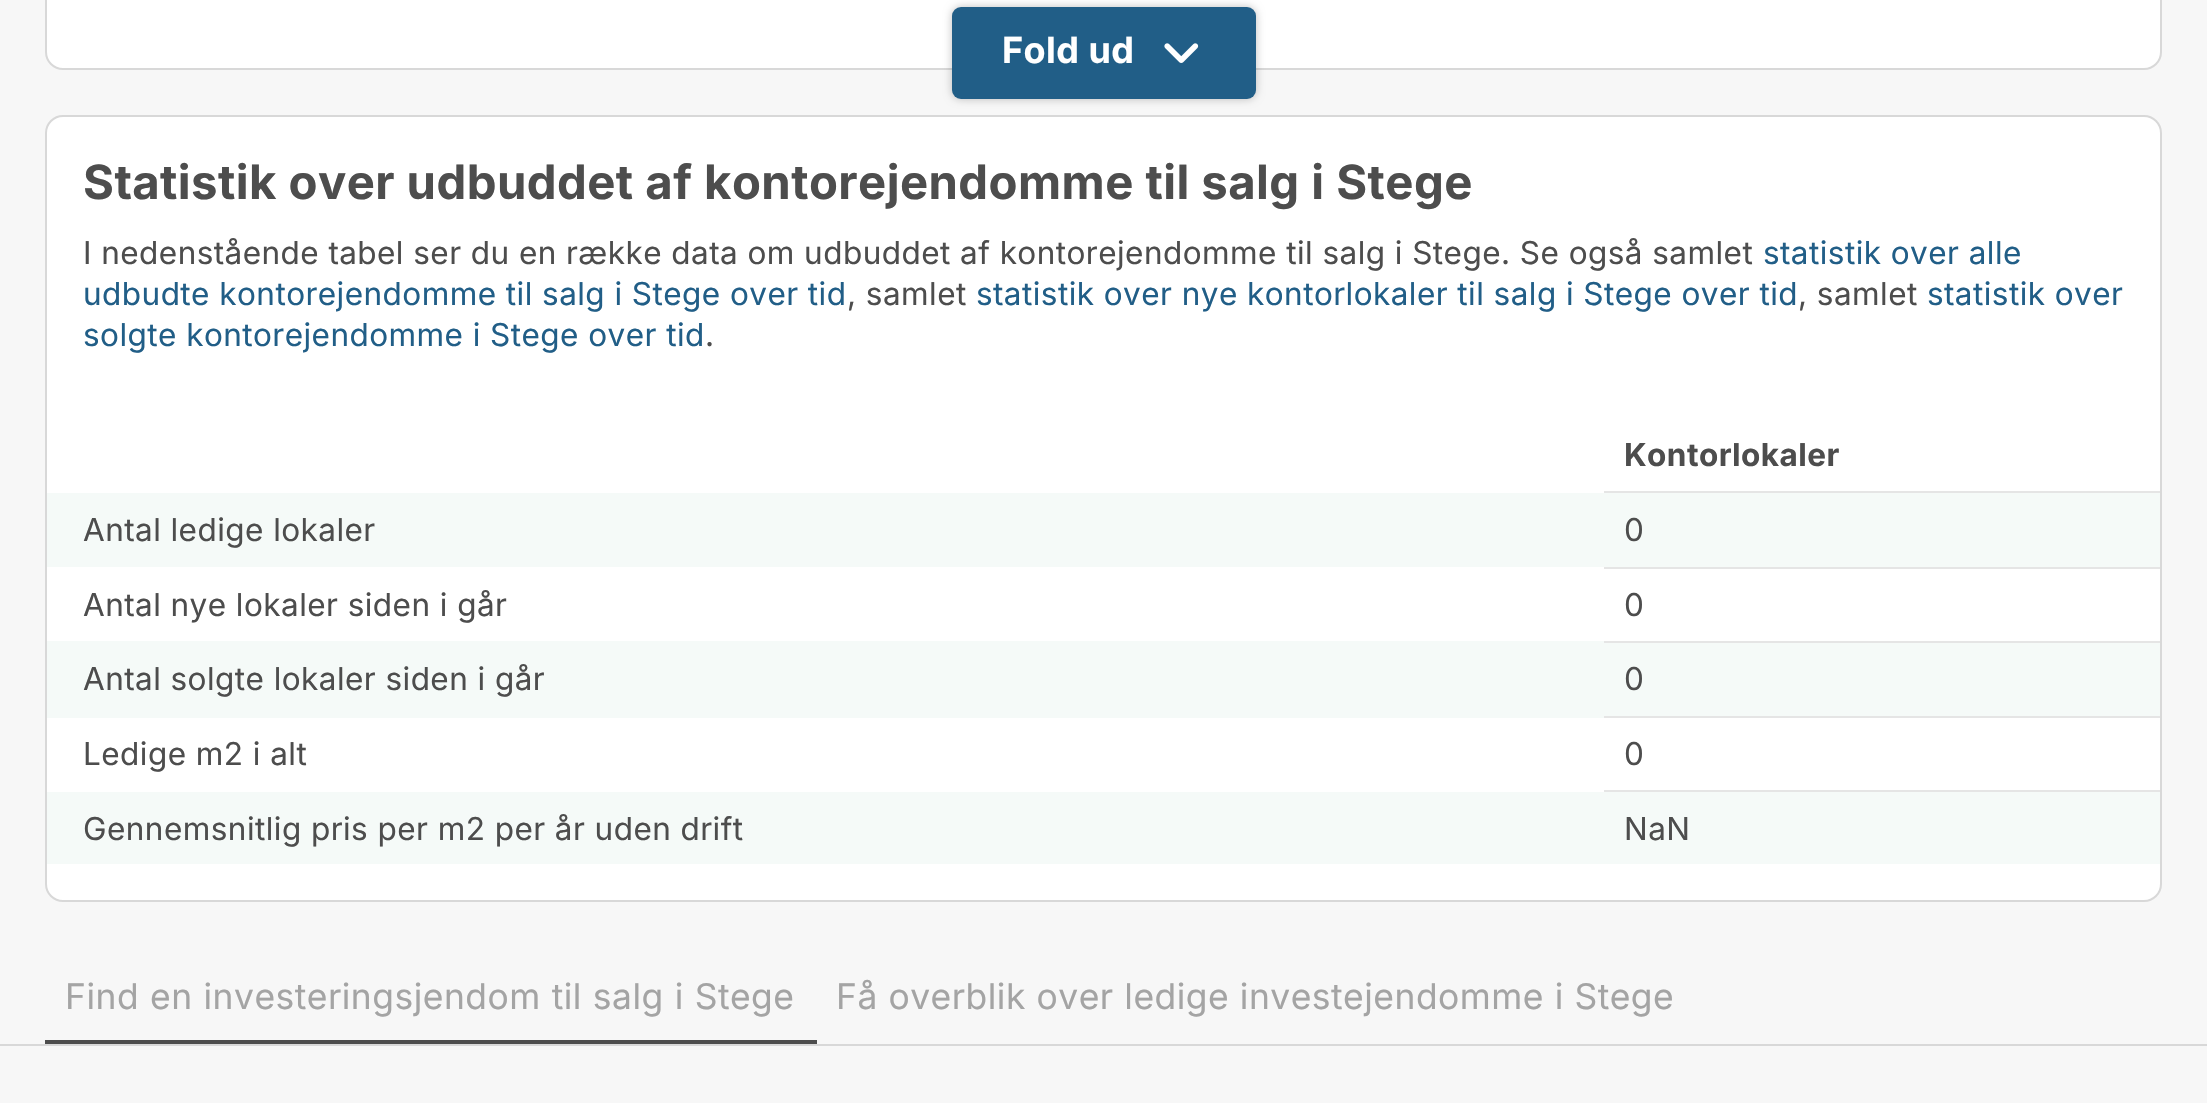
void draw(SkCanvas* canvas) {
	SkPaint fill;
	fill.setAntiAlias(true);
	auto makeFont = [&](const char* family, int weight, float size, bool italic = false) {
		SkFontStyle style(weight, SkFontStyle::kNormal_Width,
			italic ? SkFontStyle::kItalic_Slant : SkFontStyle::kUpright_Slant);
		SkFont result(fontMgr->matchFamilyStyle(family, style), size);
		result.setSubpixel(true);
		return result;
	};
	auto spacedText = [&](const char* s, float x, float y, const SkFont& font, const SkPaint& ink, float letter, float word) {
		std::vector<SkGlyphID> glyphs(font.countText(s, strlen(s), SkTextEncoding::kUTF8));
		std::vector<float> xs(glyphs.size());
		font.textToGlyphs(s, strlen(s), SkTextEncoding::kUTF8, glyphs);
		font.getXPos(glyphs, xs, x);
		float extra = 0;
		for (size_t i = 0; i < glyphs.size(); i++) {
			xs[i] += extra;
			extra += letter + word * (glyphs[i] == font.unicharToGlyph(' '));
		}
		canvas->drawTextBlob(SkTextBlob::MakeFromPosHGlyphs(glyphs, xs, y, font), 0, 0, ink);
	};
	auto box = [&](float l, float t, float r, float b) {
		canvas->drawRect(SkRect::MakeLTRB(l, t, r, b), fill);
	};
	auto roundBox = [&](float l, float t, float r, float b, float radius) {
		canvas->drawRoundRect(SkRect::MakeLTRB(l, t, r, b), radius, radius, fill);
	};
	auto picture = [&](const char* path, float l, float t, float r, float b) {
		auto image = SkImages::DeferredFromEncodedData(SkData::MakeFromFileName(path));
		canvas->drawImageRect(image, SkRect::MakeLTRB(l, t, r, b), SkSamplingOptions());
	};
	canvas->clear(0xFFF7F7F7);
	fill.setColor(0xFFFFFFFF);
	canvas->drawRoundRect(SkRect::MakeLTRB(46, -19, 2161, 69), 17, 17, fill);
	fill.setStyle(SkPaint::kStroke_Style);
	fill.setStrokeWidth(2);
	fill.setColor(0xFFD8D8D8);
	canvas->drawRoundRect(SkRect::MakeLTRB(46, -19, 2161, 69), 17, 17, fill);
	fill.setStyle(SkPaint::kFill_Style);
	fill.setColor(0x40000000);
	fill.setMaskFilter(SkMaskFilter::MakeBlur(kNormal_SkBlurStyle, 4.5f));
	canvas->drawRoundRect(SkRect::MakeLTRB(952, 7, 1256, 99), 9, 9, fill);
	fill.setMaskFilter(nullptr);
	fill.setColor(0xFF215E87);
	roundBox(952, 7, 1256, 99, 9);
	picture("image0.png", 1164, 43, 1199, 63);
	fill.setColor(0xFFFFFFFF);
	canvas->drawRoundRect(SkRect::MakeLTRB(46, 116, 2161, 901), 17, 17, fill);
	fill.setStyle(SkPaint::kStroke_Style);
	fill.setColor(0xFFD8D8D8);
	canvas->drawRoundRect(SkRect::MakeLTRB(46, 116, 2161, 901), 17, 17, fill);
	fill.setStyle(SkPaint::kFill_Style);
	fill.setColor(0xFFE5E5E5);
	box(1604, 491, 2160, 493);
	box(1604, 567, 2160, 569);
	fill.setColor(0xFFF5FAF8);
	box(47, 493, 2160, 567);
	fill.setColor(0xFFE5E5E5);
	box(1604, 641, 2160, 643);
	box(1604, 716, 2160, 718);
	fill.setColor(0xFFF5FAF8);
	box(47, 641, 1604, 718);
	box(1604, 643, 2160, 716);
	fill.setColor(0xFFE5E5E5);
	box(1604, 790, 2160, 792);
	fill.setColor(0xFFF5FAF8);
	box(47, 792, 2160, 864);
	fill.setColor(0xFFD8D8D8);
	box(0, 1044, 2207, 1046);
	fill.setColor(0xFF4D4D4D);
	box(45, 1040, 817, 1044);
	auto font1 = makeFont("Inter", 700, 36);
	fill.setColor(0xFFFFFFFF);
	spacedText("Fold ud", 1002, 63, font1, fill, 0.45f, 0);
	auto font2 = makeFont("Inter", 700, 47.25f);
	fill.setColor(0xFF4D4D4D);
	spacedText("Statistik over udbuddet af kontorejendomme til salg i Stege", 83, 199, font2, fill, 0.45f, 0);
	auto font3 = makeFont("Inter", 400, 31.5f);
	spacedText("I nedenstående tabel ser du en række data om udbuddet af kontorejendomme til salg i Stege. Se også samlet", 83, 264, font3, fill, 0.45f, 0);
	fill.setColor(0xFF215E87);
	spacedText("statistik over alle", 1763, 264, font3, fill, 0.45f, 0);
	spacedText("udbudte kontorejendomme til salg i Stege over tid", 83, 305, font3, fill, 0.45f, 0);
	fill.setColor(0xFF4D4D4D);
	spacedText(", samlet", 847, 305, font3, fill, 0.45f, 0);
	fill.setColor(0xFF215E87);
	spacedText("statistik over nye kontorlokaler til salg i Stege over tid", 976, 305, font3, fill, 0.45f, 0);
	fill.setColor(0xFF4D4D4D);
	spacedText(", samlet", 1798, 305, font3, fill, 0.45f, 0);
	fill.setColor(0xFF215E87);
	spacedText("statistik over", 1927, 305, font3, fill, 0.45f, 0);
	spacedText("solgte kontorejendomme i Stege over tid", 83, 346, font3, fill, 0.45f, 0);
	fill.setColor(0xFF4D4D4D);
	spacedText(".", 705, 346, font3, fill, 0.45f, 0);
	auto font4 = makeFont("Inter", 700, 31.5f);
	spacedText("Kontorlokaler", 1624, 466, font4, fill, 0.45f, 0);
	spacedText("Antal ledige lokaler", 83, 541, font3, fill, 0.45f, 0);
	spacedText("0", 1624, 541, font3, fill, 0.45f, 0);
	spacedText("Antal nye lokaler siden i går", 83, 616, font3, fill, 0.45f, 0);
	spacedText("0", 1624, 616, font3, fill, 0.45f, 0);
	spacedText("Antal solgte lokaler siden i går", 83, 690, font3, fill, 0.45f, 0);
	spacedText("0", 1624, 690, font3, fill, 0.45f, 0);
	spacedText("Ledige m2 i alt", 83, 765, font3, fill, 0.45f, 0);
	spacedText("0", 1624, 765, font3, fill, 0.45f, 0);
	spacedText("Gennemsnitlig pris per m2 per år uden drift", 83, 840, font3, fill, 0.45f, 0);
	spacedText("NaN", 1624, 840, font3, fill, 0.45f, 0);
	auto font5 = makeFont("Inter", 400, 35.4f);
	fill.setColor(0xFFA4A4A4);
	spacedText("Find en investeringsjendom til salg i Stege", 65, 1009, font5, fill, 0.5f, 0.5f);
	spacedText("Få overblik over ledige investejendomme i Stege", 836, 1009, font5, fill, 0.5f, 0.25f);
}
